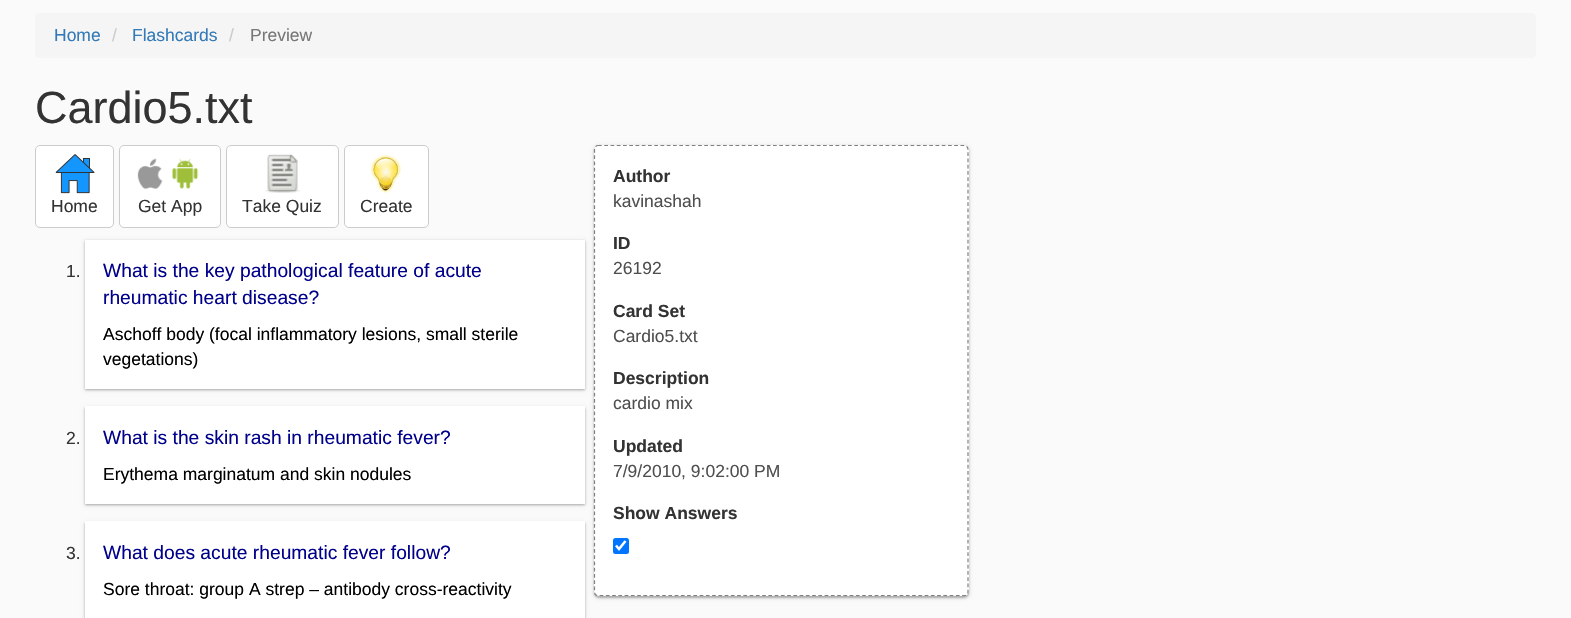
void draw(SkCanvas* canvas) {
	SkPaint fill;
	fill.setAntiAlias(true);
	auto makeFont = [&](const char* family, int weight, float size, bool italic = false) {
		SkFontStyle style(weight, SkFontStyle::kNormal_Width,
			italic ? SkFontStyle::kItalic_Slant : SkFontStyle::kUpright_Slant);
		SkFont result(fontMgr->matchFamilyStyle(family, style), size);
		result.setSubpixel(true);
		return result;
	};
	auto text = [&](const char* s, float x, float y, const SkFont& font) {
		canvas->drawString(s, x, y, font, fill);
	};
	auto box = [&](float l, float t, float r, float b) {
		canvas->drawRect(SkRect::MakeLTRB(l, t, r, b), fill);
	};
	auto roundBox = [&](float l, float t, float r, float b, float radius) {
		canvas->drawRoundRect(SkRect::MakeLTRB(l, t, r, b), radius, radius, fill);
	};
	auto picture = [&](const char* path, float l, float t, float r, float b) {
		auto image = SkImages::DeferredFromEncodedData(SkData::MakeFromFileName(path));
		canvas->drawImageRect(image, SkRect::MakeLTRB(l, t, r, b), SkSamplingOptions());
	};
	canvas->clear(0xFFFAFAFA);
	fill.setColor(0xFFF5F5F5);
	roundBox(35, 13, 1536, 58, 5);
	fill.setColor(0xFFFFFFFF);
	canvas->drawRoundRect(SkRect::MakeLTRB(35.5f, 145.5f, 113.5f, 227.5f), 4.5f, 4.5f, fill);
	fill.setStyle(SkPaint::kStroke_Style);
	fill.setStrokeWidth(1);
	fill.setColor(0xFFCCCCCC);
	canvas->drawRoundRect(SkRect::MakeLTRB(35.5f, 145.5f, 113.5f, 227.5f), 4.5f, 4.5f, fill);
	picture("image0.png", 55, 154, 95, 194);
	fill.setStyle(SkPaint::kFill_Style);
	fill.setColor(0xFFFFFFFF);
	canvas->drawRoundRect(SkRect::MakeLTRB(119.5f, 145.5f, 220.5f, 227.5f), 4.5f, 4.5f, fill);
	fill.setStyle(SkPaint::kStroke_Style);
	fill.setColor(0xFFCCCCCC);
	canvas->drawRoundRect(SkRect::MakeLTRB(119.5f, 145.5f, 220.5f, 227.5f), 4.5f, 4.5f, fill);
	picture("image1.png", 137, 158, 163, 189);
	picture("image2.png", 172, 158, 199, 189);
	fill.setStyle(SkPaint::kFill_Style);
	fill.setColor(0xFFFFFFFF);
	canvas->drawRoundRect(SkRect::MakeLTRB(226.5f, 145.5f, 338.5f, 227.5f), 4.5f, 4.5f, fill);
	fill.setStyle(SkPaint::kStroke_Style);
	fill.setColor(0xFFCCCCCC);
	canvas->drawRoundRect(SkRect::MakeLTRB(226.5f, 145.5f, 338.5f, 227.5f), 4.5f, 4.5f, fill);
	picture("image3.png", 265, 153, 301, 193);
	fill.setStyle(SkPaint::kFill_Style);
	fill.setColor(0xFFFFFFFF);
	canvas->drawRoundRect(SkRect::MakeLTRB(344.5f, 145.5f, 428.5f, 227.5f), 4.5f, 4.5f, fill);
	fill.setStyle(SkPaint::kStroke_Style);
	fill.setColor(0xFFCCCCCC);
	canvas->drawRoundRect(SkRect::MakeLTRB(344.5f, 145.5f, 428.5f, 227.5f), 4.5f, 4.5f, fill);
	picture("image4.png", 370, 154, 401, 193);
	fill.setStyle(SkPaint::kFill_Style);
	fill.setColor(0x3D000000);
	fill.setMaskFilter(SkMaskFilter::MakeBlur(kNormal_SkBlurStyle, 1));
	canvas->drawRect(SkRect::MakeLTRB(85, 241, 585, 390), fill);
	fill.setMaskFilter(nullptr);
	fill.setColor(0x1F000000);
	fill.setMaskFilter(SkMaskFilter::MakeBlur(kNormal_SkBlurStyle, 2));
	canvas->drawRect(SkRect::MakeLTRB(85, 241, 585, 390), fill);
	fill.setMaskFilter(nullptr);
	fill.setColor(0xFFFFFFFF);
	box(85, 240, 585, 389);
	fill.setColor(0x3D000000);
	fill.setMaskFilter(SkMaskFilter::MakeBlur(kNormal_SkBlurStyle, 1));
	canvas->drawRect(SkRect::MakeLTRB(85, 408, 585, 505), fill);
	fill.setMaskFilter(nullptr);
	fill.setColor(0x1F000000);
	fill.setMaskFilter(SkMaskFilter::MakeBlur(kNormal_SkBlurStyle, 2));
	canvas->drawRect(SkRect::MakeLTRB(85, 408, 585, 505), fill);
	fill.setMaskFilter(nullptr);
	fill.setColor(0xFFFFFFFF);
	box(85, 406, 585, 504);
	fill.setColor(0x3D000000);
	fill.setMaskFilter(SkMaskFilter::MakeBlur(kNormal_SkBlurStyle, 1));
	canvas->drawRect(SkRect::MakeLTRB(85, 523, 585, 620), fill);
	fill.setMaskFilter(nullptr);
	fill.setColor(0x1F000000);
	fill.setMaskFilter(SkMaskFilter::MakeBlur(kNormal_SkBlurStyle, 2));
	canvas->drawRect(SkRect::MakeLTRB(85, 523, 585, 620), fill);
	fill.setMaskFilter(nullptr);
	fill.setColor(0xFFFFFFFF);
	box(85, 521, 585, 618);
	fill.setColor(0x3D000000);
	fill.setMaskFilter(SkMaskFilter::MakeBlur(kNormal_SkBlurStyle, 1));
	canvas->drawRoundRect(SkRect::MakeLTRB(594, 146, 969, 598), 5, 5, fill);
	fill.setMaskFilter(nullptr);
	fill.setColor(0x1F000000);
	fill.setMaskFilter(SkMaskFilter::MakeBlur(kNormal_SkBlurStyle, 2));
	canvas->drawRoundRect(SkRect::MakeLTRB(594, 146, 969, 598), 5, 5, fill);
	fill.setMaskFilter(nullptr);
	fill.setColor(0xFFFFFFFF);
	roundBox(594, 145, 969, 596, 5);
	fill.setStyle(SkPaint::kStroke_Style);
	fill.setStrokeWidth(1.2f);
	fill.setColor(0xFF808080);
	fill.setPathEffect(SkDashPathEffect::Make({{3.75f, 2.5f}}, 0));
	canvas->drawPath(SkPathBuilder().moveTo(598, 145.5f).lineTo(964.5f, 145.5f).cubicTo(966.5f, 145.5f, 968, 147.5f, 968, 149.5f).lineTo(968, 592).cubicTo(968, 594, 966.5f, 595.5f, 964.5f, 595.5f).lineTo(598, 595.5f).cubicTo(596, 595.5f, 594.5f, 594, 594.5f, 592).lineTo(594.5f, 149.5f).cubicTo(594.5f, 147.5f, 596, 145.5f, 598, 145.5f).close().detach(), fill);
	fill.setPathEffect(nullptr);
	fill.setStyle(SkPaint::kFill_Style);
	fill.setColor(0xFF0075FF);
	roundBox(613, 538, 629, 554, 2.5f);
	fill.setStyle(SkPaint::kStroke_Style);
	fill.setStrokeWidth(2.6f);
	fill.setColor(0xFFFFFFFF);
	canvas->drawPath(SkPathBuilder().moveTo(616, 545.5f).lineTo(619, 549).lineTo(625.5f, 541).detach(), fill);
	auto font1 = makeFont("Liberation Sans", 400, 17.5f);
	fill.setStyle(SkPaint::kFill_Style);
	fill.setColor(0xFF337AB7);
	text("Home", 54, 41, font1);
	fill.setColor(0xFFCCCCCC);
	text("/", 112, 41, font1);
	fill.setColor(0xFF337AB7);
	text("Flashcards", 132, 41, font1);
	fill.setColor(0xFFCCCCCC);
	text("/", 229, 41, font1);
	fill.setColor(0xFF777777);
	text("Preview", 250, 41, font1);
	auto font2 = makeFont("Liberation Sans", 400, 45);
	fill.setColor(0xFF333333);
	text("Cardio5.txt", 35, 123, font2);
	text("Home", 51, 212, font1);
	text("Get App", 138, 212, font1);
	text("Take Quiz", 242, 212, font1);
	text("Create", 360, 212, font1);
	text("1.", 66, 277, font1);
	auto font3 = makeFont("Liberation Sans", 400, 19.25f);
	fill.setColor(0xFF00008B);
	text("What is the key pathological feature of acute", 103, 277, font3);
	text("rheumatic heart disease?", 103, 304, font3);
	fill.setColor(0xFF000000);
	text("Aschoff body (focal inflammatory lesions, small sterile", 103, 340, font1);
	text("vegetations)", 103, 365, font1);
	fill.setColor(0xFF333333);
	text("2.", 66, 444, font1);
	fill.setColor(0xFF00008B);
	text("What is the skin rash in rheumatic fever?", 103, 444, font3);
	fill.setColor(0xFF000000);
	text("Erythema marginatum and skin nodules", 103, 480, font1);
	fill.setColor(0xFF333333);
	text("3.", 66, 559, font1);
	fill.setColor(0xFF00008B);
	text("What does acute rheumatic fever follow?", 103, 559, font3);
	fill.setColor(0xFF000000);
	text("Sore throat: group A strep – antibody cross-reactivity", 103, 595, font1);
	auto font4 = makeFont("Liberation Sans", 700, 17.5f);
	fill.setColor(0xFF333333);
	text("Author", 613, 182, font4);
	fill.setColor(0xFF4F4F4F);
	text("kavinashah", 613, 207, font1);
	fill.setColor(0xFF333333);
	text("ID", 613, 249, font4);
	fill.setColor(0xFF4F4F4F);
	text("26192", 613, 274, font1);
	fill.setColor(0xFF333333);
	text("Card Set", 613, 317, font4);
	fill.setColor(0xFF4F4F4F);
	text("Cardio5.txt", 613, 342, font1);
	fill.setColor(0xFF333333);
	text("Description", 613, 384, font4);
	fill.setColor(0xFF4F4F4F);
	text("cardio mix", 613, 409, font1);
	fill.setColor(0xFF333333);
	text("Updated", 613, 452, font4);
	fill.setColor(0xFF4F4F4F);
	text("7/9/2010, 9:02:00 PM", 613, 477, font1);
	fill.setColor(0xFF333333);
	text("Show Answers", 613, 519, font4);
}
